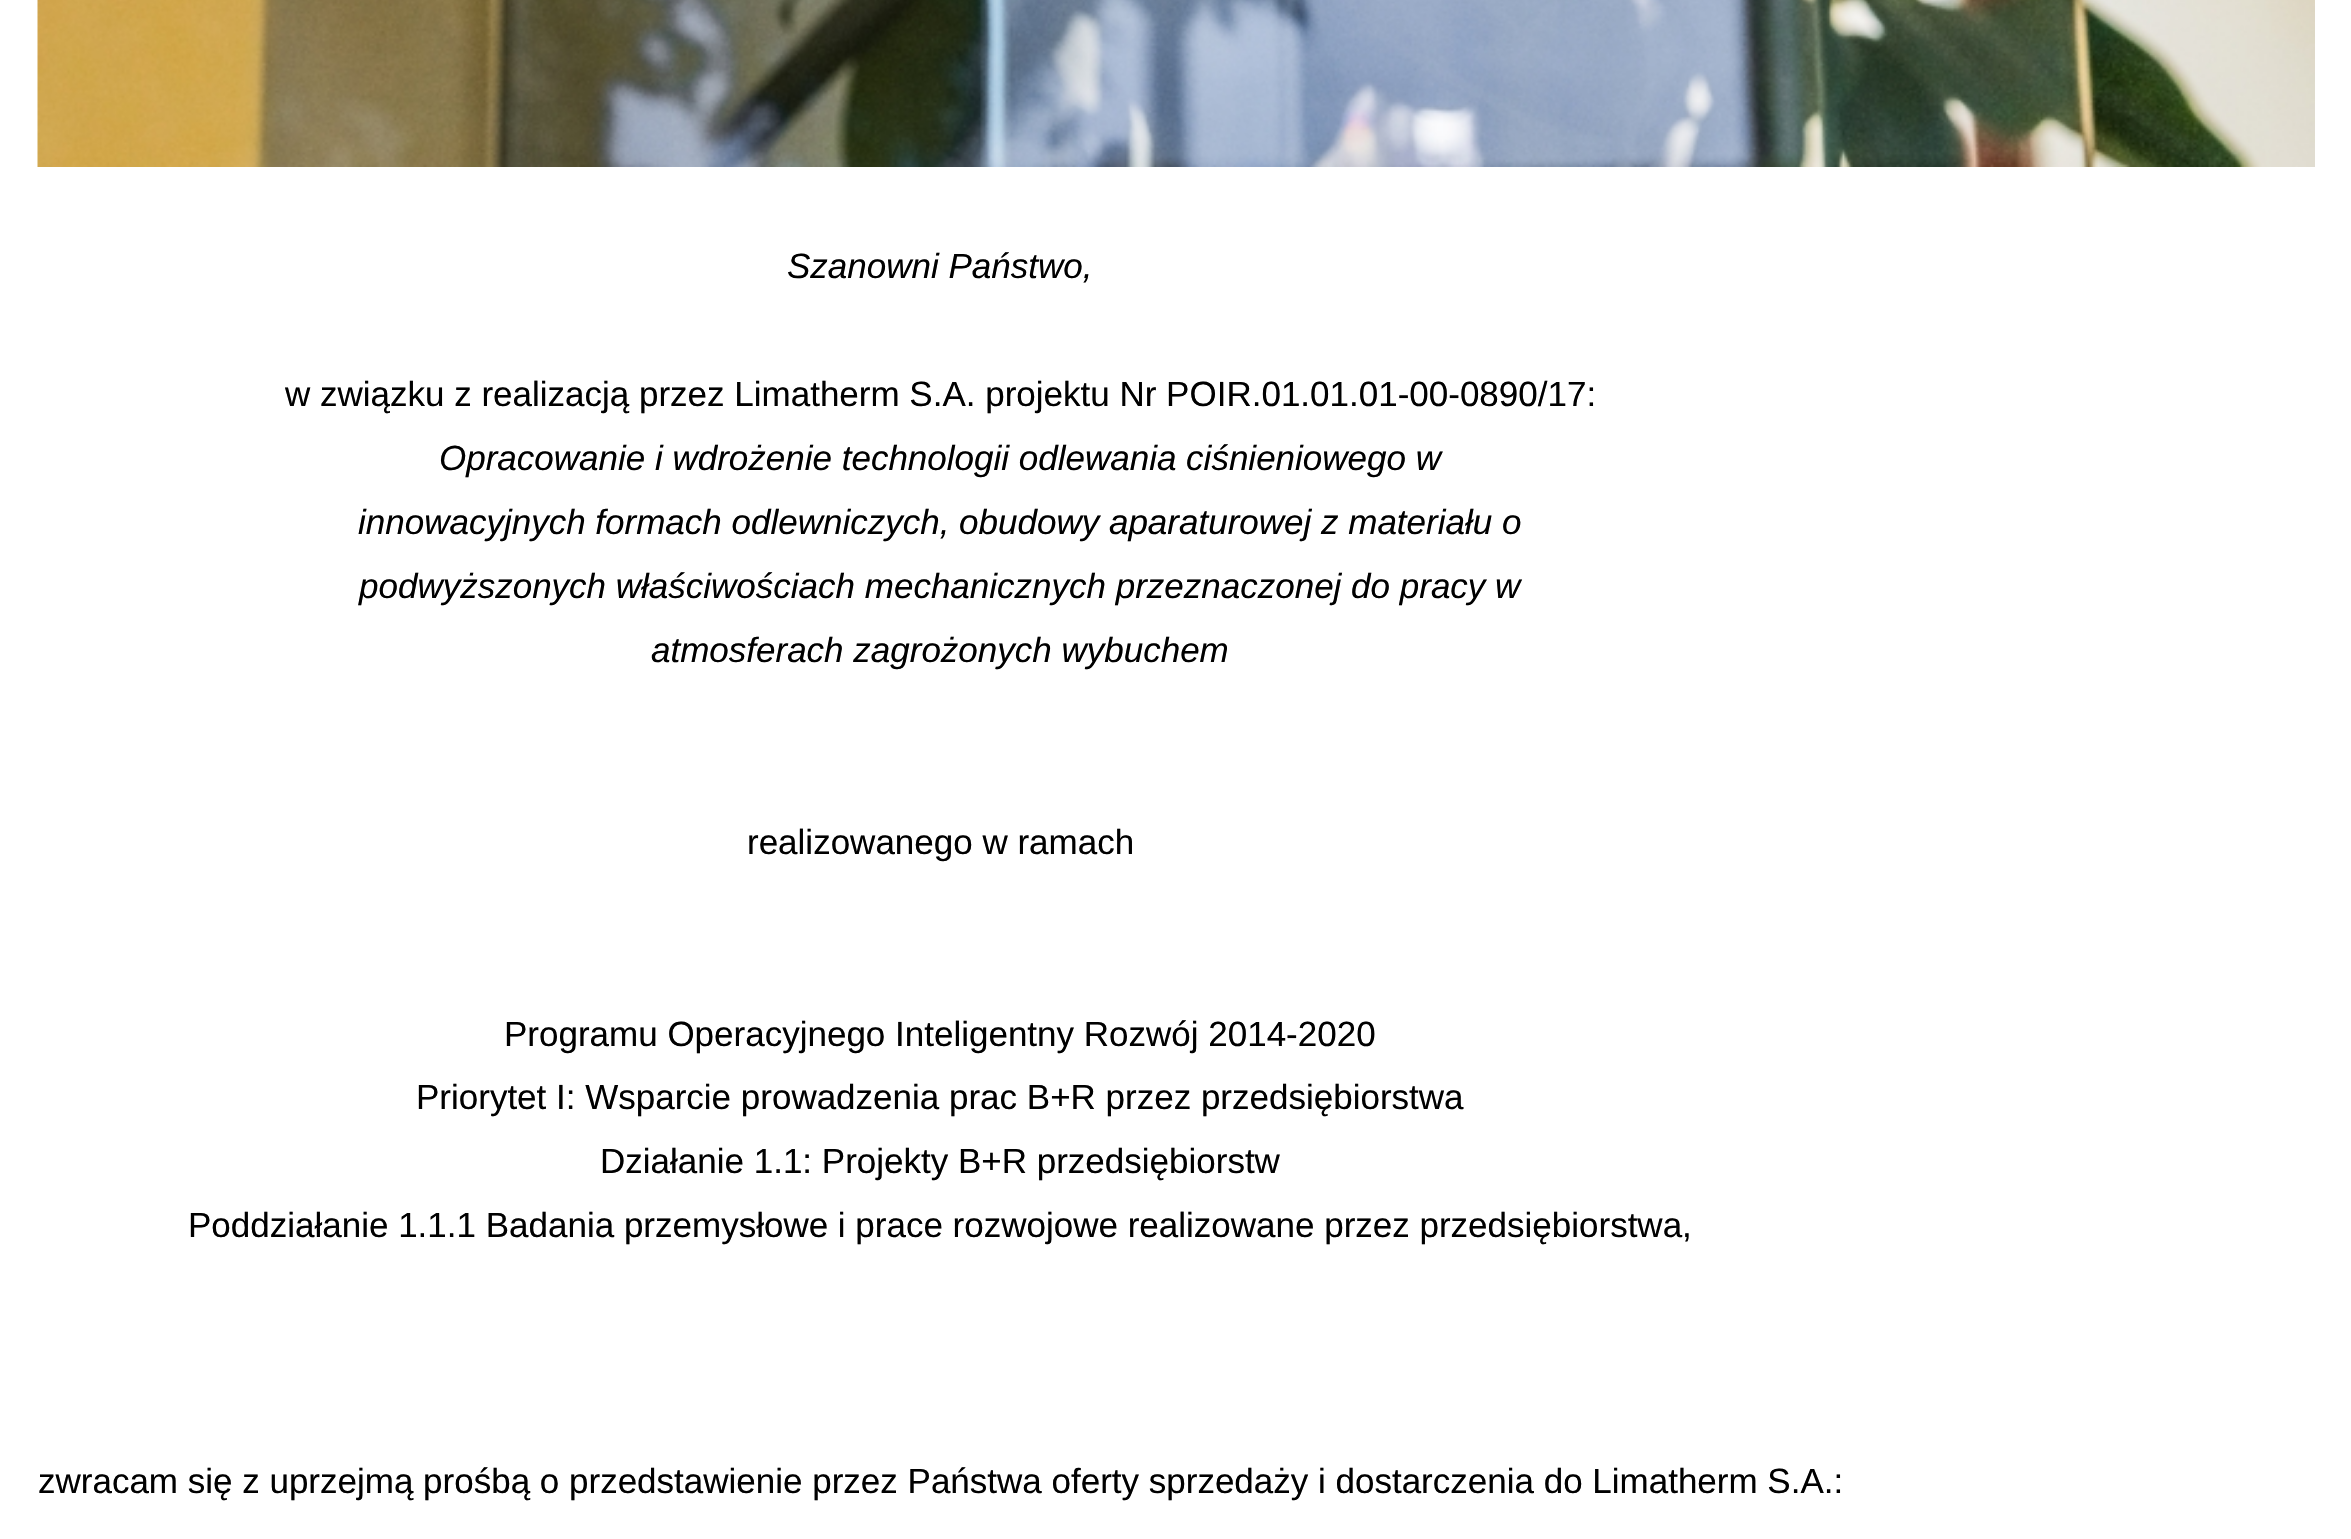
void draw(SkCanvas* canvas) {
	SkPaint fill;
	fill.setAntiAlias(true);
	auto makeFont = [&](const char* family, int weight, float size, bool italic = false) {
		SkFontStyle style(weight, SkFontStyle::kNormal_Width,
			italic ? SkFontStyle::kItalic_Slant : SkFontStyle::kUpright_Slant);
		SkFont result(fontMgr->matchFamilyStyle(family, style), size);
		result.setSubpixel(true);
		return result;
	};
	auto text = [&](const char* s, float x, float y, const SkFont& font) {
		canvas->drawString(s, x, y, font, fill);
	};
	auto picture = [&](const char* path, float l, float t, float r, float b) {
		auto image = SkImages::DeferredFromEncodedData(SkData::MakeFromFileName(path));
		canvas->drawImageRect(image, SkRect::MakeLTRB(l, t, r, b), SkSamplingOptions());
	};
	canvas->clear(0xFFFFFFFF);
	picture("image0.png", 37, 0, 2315, 167);
	auto font1 = makeFont("Liberation Sans", 400, 35, true);
	fill.setColor(0xFF000000);
	text("Szanowni Państwo,", 787, 278, font1);
	auto font2 = makeFont("Liberation Sans", 400, 35);
	text("w związku z realizacją przez Limatherm S.A. projektu Nr POIR.01.01.01-00-0890/17:", 285, 406, font2);
	text("Opracowanie i wdrożenie technologii odlewania ciśnieniowego w", 439, 470, font1);
	text("innowacyjnych formach odlewniczych, obudowy aparaturowej z materiału o", 358, 534, font1);
	text("podwyższonych właściwościach mechanicznych przeznaczonej do pracy w", 359, 598, font1);
	text("atmosferach zagrożonych wybuchem", 651, 662, font1);
	text("realizowanego w ramach", 747, 854, font2);
	text("Programu Operacyjnego Inteligentny Rozwój 2014-2020", 504, 1046, font2);
	text("Priorytet I: Wsparcie prowadzenia prac B+R przez przedsiębiorstwa", 416, 1109, font2);
	text("Działanie 1.1: Projekty B+R przedsiębiorstw", 600, 1173, font2);
	text("Poddziałanie 1.1.1 Badania przemysłowe i prace rozwojowe realizowane przez przedsiębiorstwa,", 188, 1237, font2);
	text("zwracam się z uprzejmą prośbą o przedstawienie przez Państwa oferty sprzedaży i dostarczenia do Limatherm S.A.:", 38, 1493, font2);
}
